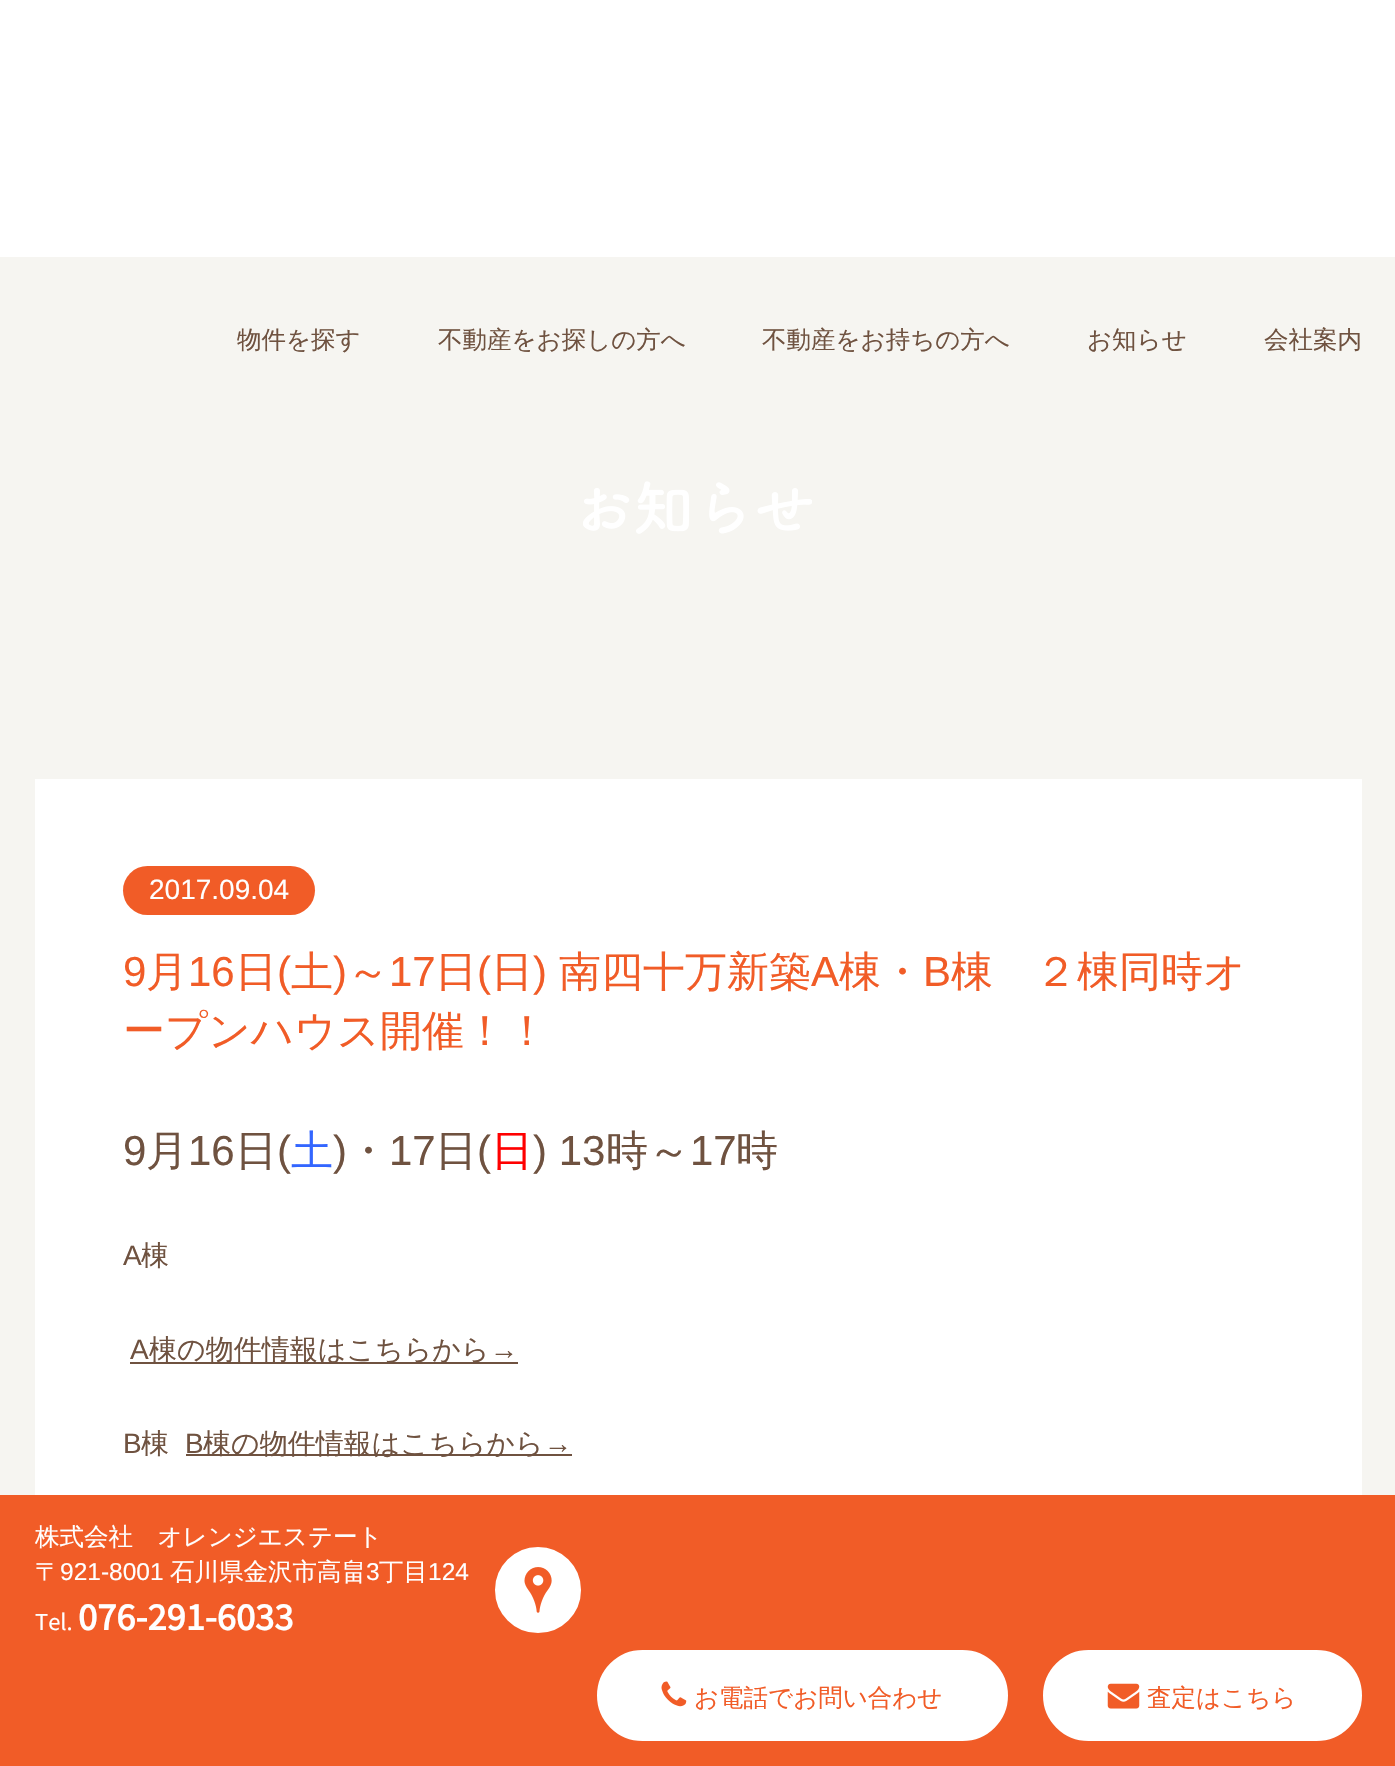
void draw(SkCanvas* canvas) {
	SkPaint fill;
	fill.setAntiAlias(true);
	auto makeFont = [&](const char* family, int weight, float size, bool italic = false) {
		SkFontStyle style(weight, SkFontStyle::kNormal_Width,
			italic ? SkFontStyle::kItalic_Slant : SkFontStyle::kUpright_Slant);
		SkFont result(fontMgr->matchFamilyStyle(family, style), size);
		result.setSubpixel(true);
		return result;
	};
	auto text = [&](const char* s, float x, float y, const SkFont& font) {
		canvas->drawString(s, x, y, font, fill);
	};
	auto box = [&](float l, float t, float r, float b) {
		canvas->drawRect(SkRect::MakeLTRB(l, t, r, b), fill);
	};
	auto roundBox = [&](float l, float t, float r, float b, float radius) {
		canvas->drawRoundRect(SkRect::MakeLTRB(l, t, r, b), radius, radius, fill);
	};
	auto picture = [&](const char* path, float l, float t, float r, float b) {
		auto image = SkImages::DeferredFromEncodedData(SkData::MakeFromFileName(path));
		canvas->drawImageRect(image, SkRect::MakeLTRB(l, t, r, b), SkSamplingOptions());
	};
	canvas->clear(0xFFFFFFFF);
	fill.setColor(0xFFF6F5F1);
	box(0, 257, 1395, 1495);
	picture("image0.png", 583, 481, 812, 534);
	fill.setColor(0xFFFFFFFF);
	box(35, 779, 1362, 1495);
	fill.setColor(0xFFF15C27);
	roundBox(123, 866, 315, 915, 24.5f);
	fill.setColor(0xFF6F5240);
	box(130, 1362, 518, 1364);
	box(186, 1454, 572, 1456);
	fill.setColor(0xFFF15C27);
	box(0, 1495, 1395, 1766);
	fill.setColor(0xFFFFFFFF);
	canvas->drawCircle(538, 1590, 41, fill);
	fill.setStyle(SkPaint::kStroke_Style);
	fill.setStrokeWidth(4);
	canvas->drawCircle(538, 1590, 41, fill);
	picture("image1.png", 524, 1567, 552, 1613);
	fill.setStyle(SkPaint::kFill_Style);
	canvas->drawRoundRect(SkRect::MakeLTRB(599, 1652, 1006, 1739), 43.5f, 43.5f, fill);
	fill.setStyle(SkPaint::kStroke_Style);
	canvas->drawRoundRect(SkRect::MakeLTRB(599, 1652, 1006, 1739), 43.5f, 43.5f, fill);
	picture("image2.png", 661, 1681, 687, 1707);
	fill.setStyle(SkPaint::kFill_Style);
	canvas->drawRoundRect(SkRect::MakeLTRB(1045, 1652, 1360, 1739), 43.5f, 43.5f, fill);
	fill.setStyle(SkPaint::kStroke_Style);
	canvas->drawRoundRect(SkRect::MakeLTRB(1045, 1652, 1360, 1739), 43.5f, 43.5f, fill);
	picture("image3.png", 1107, 1683, 1140, 1709);
	auto font1 = makeFont("WenQuanYi Zen Hei", 500, 24.5f);
	fill.setStyle(SkPaint::kFill_Style);
	fill.setColor(0xFF6F5240);
	text("物件を探す", 237, 348, font1);
	text("不動産をお探しの方へ", 438, 348, font1);
	text("不動産をお持ちの方へ", 762, 348, font1);
	text("お知らせ", 1087, 348, font1);
	text("会社案内", 1264, 348, font1);
	auto font2 = makeFont("Liberation Sans", 400, 28);
	fill.setColor(0xFFFFFFFF);
	text("2017.09.04", 149, 899, font2);
	auto font3 = makeFont("Liberation Sans", 400, 42);
	fill.setColor(0xFFF15C27);
	text("9", 123, 986, font3);
	auto font4 = makeFont("WenQuanYi Zen Hei", 500, 42);
	text("月", 146, 986, font4);
	text("16", 188, 986, font3);
	text("日", 235, 986, font4);
	text("(", 277, 986, font3);
	text("土", 291, 986, font4);
	text(")", 333, 986, font3);
	text("～", 347, 986, font4);
	text("17", 389, 986, font3);
	text("日", 435, 986, font4);
	text("(", 477, 986, font3);
	text("日", 491, 986, font4);
	text(")", 533, 986, font3);
	text("南四十万新築", 559, 986, font4);
	text("A", 811, 986, font3);
	text("棟・", 839, 986, font4);
	text("B", 923, 986, font3);
	text("棟　２棟同時オ", 951, 986, font4);
	text("ープンハウス開催！！", 123, 1045, font4);
	fill.setColor(0xFF6F5240);
	text("9", 123, 1165, font3);
	text("月", 146, 1165, font4);
	text("16", 188, 1165, font3);
	text("日", 235, 1165, font4);
	text("(", 277, 1165, font3);
	fill.setColor(0xFF3366FF);
	text("土", 291, 1165, font4);
	fill.setColor(0xFF6F5240);
	text(")", 333, 1165, font3);
	text("・", 347, 1165, font4);
	text("17", 389, 1165, font3);
	text("日", 435, 1165, font4);
	text("(", 477, 1165, font3);
	fill.setColor(0xFFFF0000);
	text("日", 491, 1165, font4);
	fill.setColor(0xFF6F5240);
	text(") 13", 533, 1165, font3);
	text("時～", 606, 1165, font4);
	text("17", 690, 1165, font3);
	text("時", 736, 1165, font4);
	text("A", 123, 1265, font2);
	auto font5 = makeFont("WenQuanYi Zen Hei", 500, 28);
	text("棟", 141, 1265, font5);
	text("A", 130, 1359, font2);
	text("棟の物件情報はこちらから", 149, 1359, font5);
	text("→", 490, 1359, font2);
	text("B", 123, 1453, font2);
	text("棟", 141, 1453, font5);
	text("B", 185, 1453, font2);
	text("棟の物件情報はこちらから", 203, 1453, font5);
	text("→", 544, 1453, font2);
	fill.setColor(0xFFFFFFFF);
	text("株式会社　オレンジエステート", 35, 1545, font1);
	text("〒", 35, 1580, font1);
	auto font6 = makeFont("Liberation Sans", 400, 24.5f);
	text("921-8001", 60, 1580, font6);
	text("石川県金沢市高畠", 170, 1580, font1);
	text("3", 366, 1580, font6);
	text("丁目", 379, 1580, font1);
	text("124", 428, 1580, font6);
	auto font7 = makeFont("Source Sans Pro", 400, 24.5f);
	text("Tel.", 35, 1630, font7);
	auto font8 = makeFont("Source Sans Pro", 700, 38.5f);
	text("076-291-6033", 78, 1630, font8);
	fill.setColor(0xFFF15C27);
	text("お電話でお問い合わせ", 694, 1706, font1);
	text("査定はこちら", 1147, 1706, font1);
}
